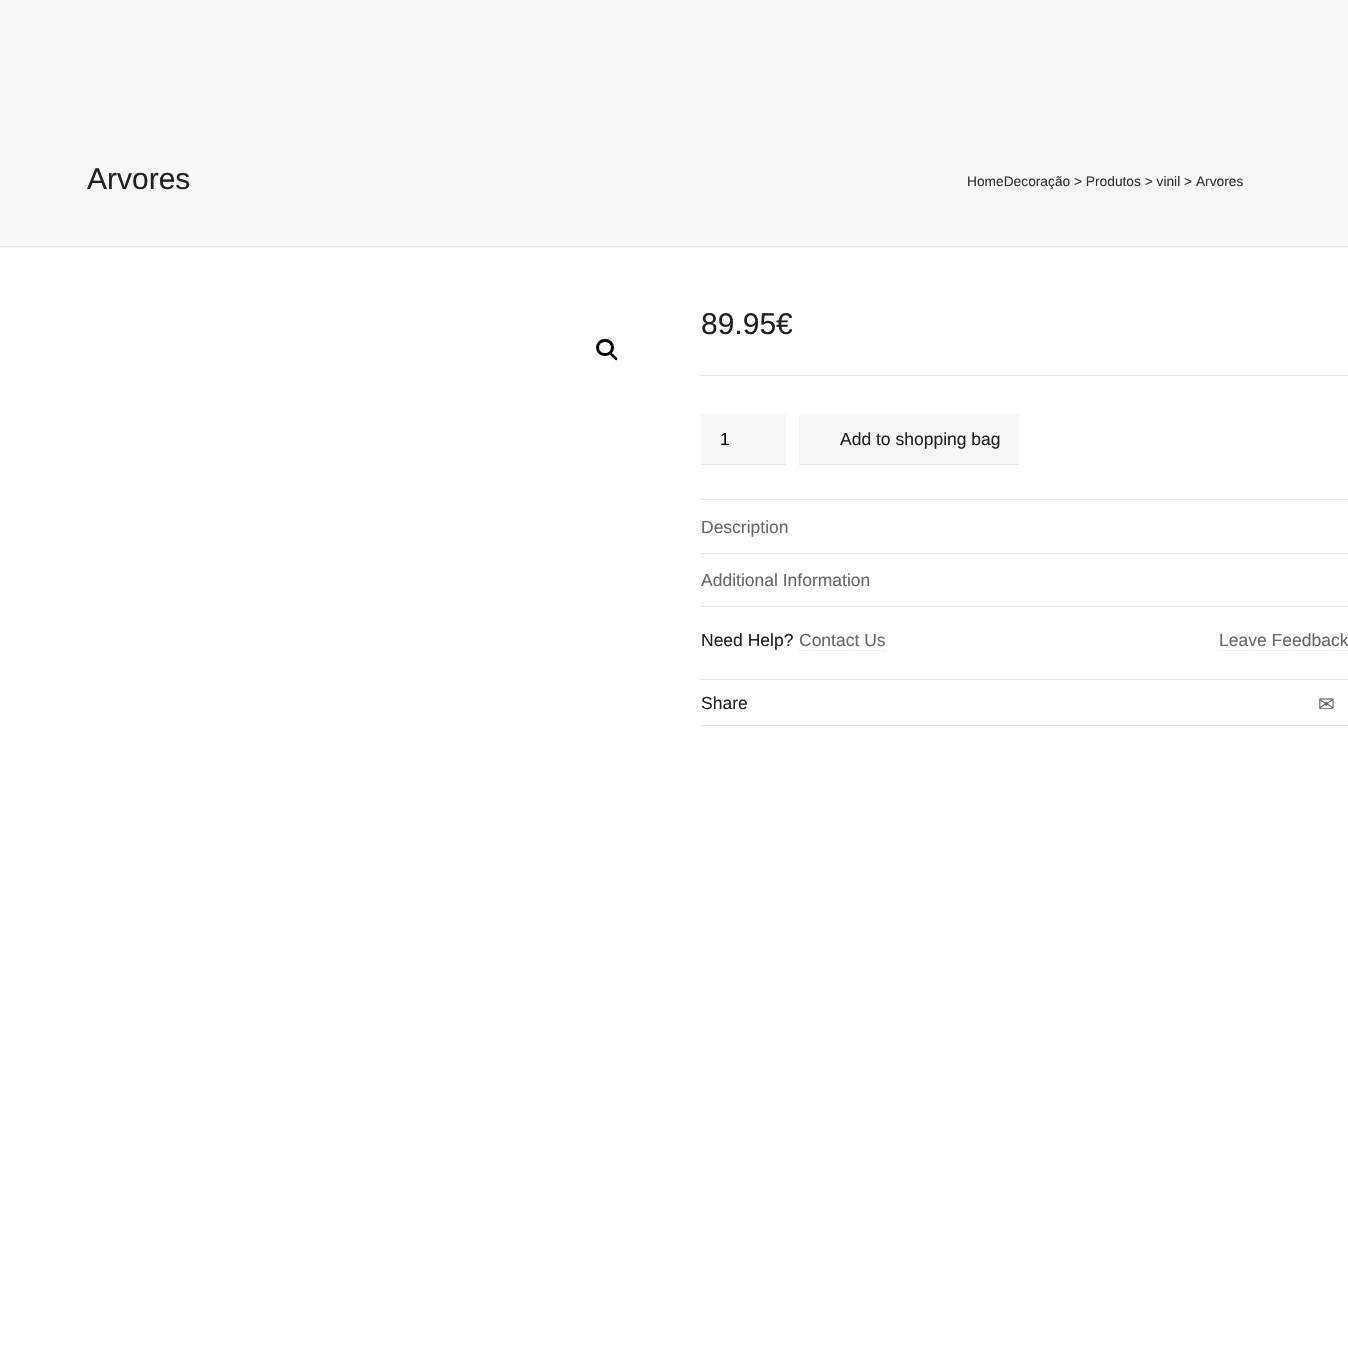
void draw(SkCanvas* canvas) {
	SkPaint fill;
	fill.setAntiAlias(true);
	auto makeFont = [&](const char* family, int weight, float size, bool italic = false) {
		SkFontStyle style(weight, SkFontStyle::kNormal_Width,
			italic ? SkFontStyle::kItalic_Slant : SkFontStyle::kUpright_Slant);
		SkFont result(fontMgr->matchFamilyStyle(family, style), size);
		result.setSubpixel(true);
		return result;
	};
	auto text = [&](const char* s, float x, float y, const SkFont& font) {
		canvas->drawString(s, x, y, font, fill);
	};
	auto box = [&](float l, float t, float r, float b) {
		canvas->drawRect(SkRect::MakeLTRB(l, t, r, b), fill);
	};
	canvas->clear(0xFFFFFFFF);
	fill.setColor(0xFFF7F7F7);
	box(0, 0, 1348, 248);
	fill.setColor(0xFFE4E4E4);
	box(0, 246, 1348, 247);
	fill.setStyle(SkPaint::kStroke_Style);
	fill.setStrokeWidth(3);
	fill.setColor(0xFF000000);
	canvas->drawRoundRect(SkRect::MakeLTRB(597.5f, 340.5f, 612.5f, 354.5f), 7, 7, fill);
	fill.setStyle(SkPaint::kFill_Style);
	canvas->drawPath(SkPathBuilder().moveTo(610, 353).cubicTo(611.5f, 351.5f, 614, 355, 614.5f, 355.5f).cubicTo(615.5f, 356.5f, 618.5f, 358.5f, 617, 360).cubicTo(615.5f, 361.5f, 613.5f, 358, 612.5f, 357.5f).cubicTo(612, 356.5f, 608.5f, 354.5f, 610, 353).close().detach(), fill);
	fill.setColor(0xFFE4E4E4);
	box(701, 375, 1348, 376);
	fill.setColor(0xFFE6E6E6);
	canvas->drawPath(SkPathBuilder().moveTo(701, 415).lineTo(701, 465).lineTo(786, 465).lineTo(786, 464).lineTo(701, 464).close().detach(), fill);
	fill.setColor(0xFFF7F7F7);
	box(701, 414, 786, 464);
	fill.setColor(0xFFE6E6E6);
	canvas->drawPath(SkPathBuilder().moveTo(799, 464).lineTo(799, 465).lineTo(1019, 465).lineTo(1019, 415).lineTo(1019, 464).close().detach(), fill);
	fill.setColor(0xFFF7F7F7);
	box(799, 414, 1019, 464);
	fill.setColor(0xFFE4E4E4);
	box(701, 499, 1348, 500);
	box(701, 553, 1348, 554);
	box(701, 606, 1348, 607);
	fill.setStyle(SkPaint::kStroke_Style);
	fill.setStrokeWidth(1.2f);
	fill.setPathEffect(SkDashPathEffect::Make({{1.25f, 1.25f}}, 0));
	canvas->drawPath(SkPathBuilder().moveTo(799, 650.5f).lineTo(885, 650.5f).detach(), fill);
	fill.setPathEffect(nullptr);
	fill.setPathEffect(SkDashPathEffect::Make({{1.25f, 1.25f}}, 0));
	canvas->drawPath(SkPathBuilder().moveTo(1219, 650.5f).lineTo(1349, 650.5f).detach(), fill);
	fill.setPathEffect(nullptr);
	fill.setStyle(SkPaint::kFill_Style);
	box(701, 679, 1348, 680);
	box(701, 725, 1348, 726);
	auto font1 = makeFont("Liberation Sans", 400, 30);
	fill.setColor(0xFF222222);
	text("Arvores", 87, 189, font1);
	auto font2 = makeFont("Liberation Sans", 400, 13.75f);
	fill.setColor(0xFF333333);
	text("HomeDecoração > Produtos > vinil > Arvores", 967, 186, font2);
	fill.setColor(0xFF222222);
	text("89.95€", 701, 334, font1);
	auto font3 = makeFont("Liberation Sans", 400, 17.5f);
	fill.setColor(0xFF000000);
	text("1", 720, 445, font3);
	fill.setColor(0xFF222222);
	text("Add to shopping bag", 840, 445, font3);
	fill.setColor(0xFF666666);
	text("Description", 701, 533, font3);
	text("Additional Information", 701, 586, font3);
	fill.setColor(0xFF222222);
	text("Need Help?", 701, 646, font3);
	fill.setColor(0xFF666666);
	text("Contact Us", 799, 646, font3);
	text("Leave Feedback", 1219, 646, font3);
	fill.setColor(0xFF222222);
	text("Share", 701, 709, font3);
	auto font4 = makeFont("DejaVu Sans", 400, 20);
	fill.setColor(0xFF666666);
	text("✉", 1318, 711, font4);
}
